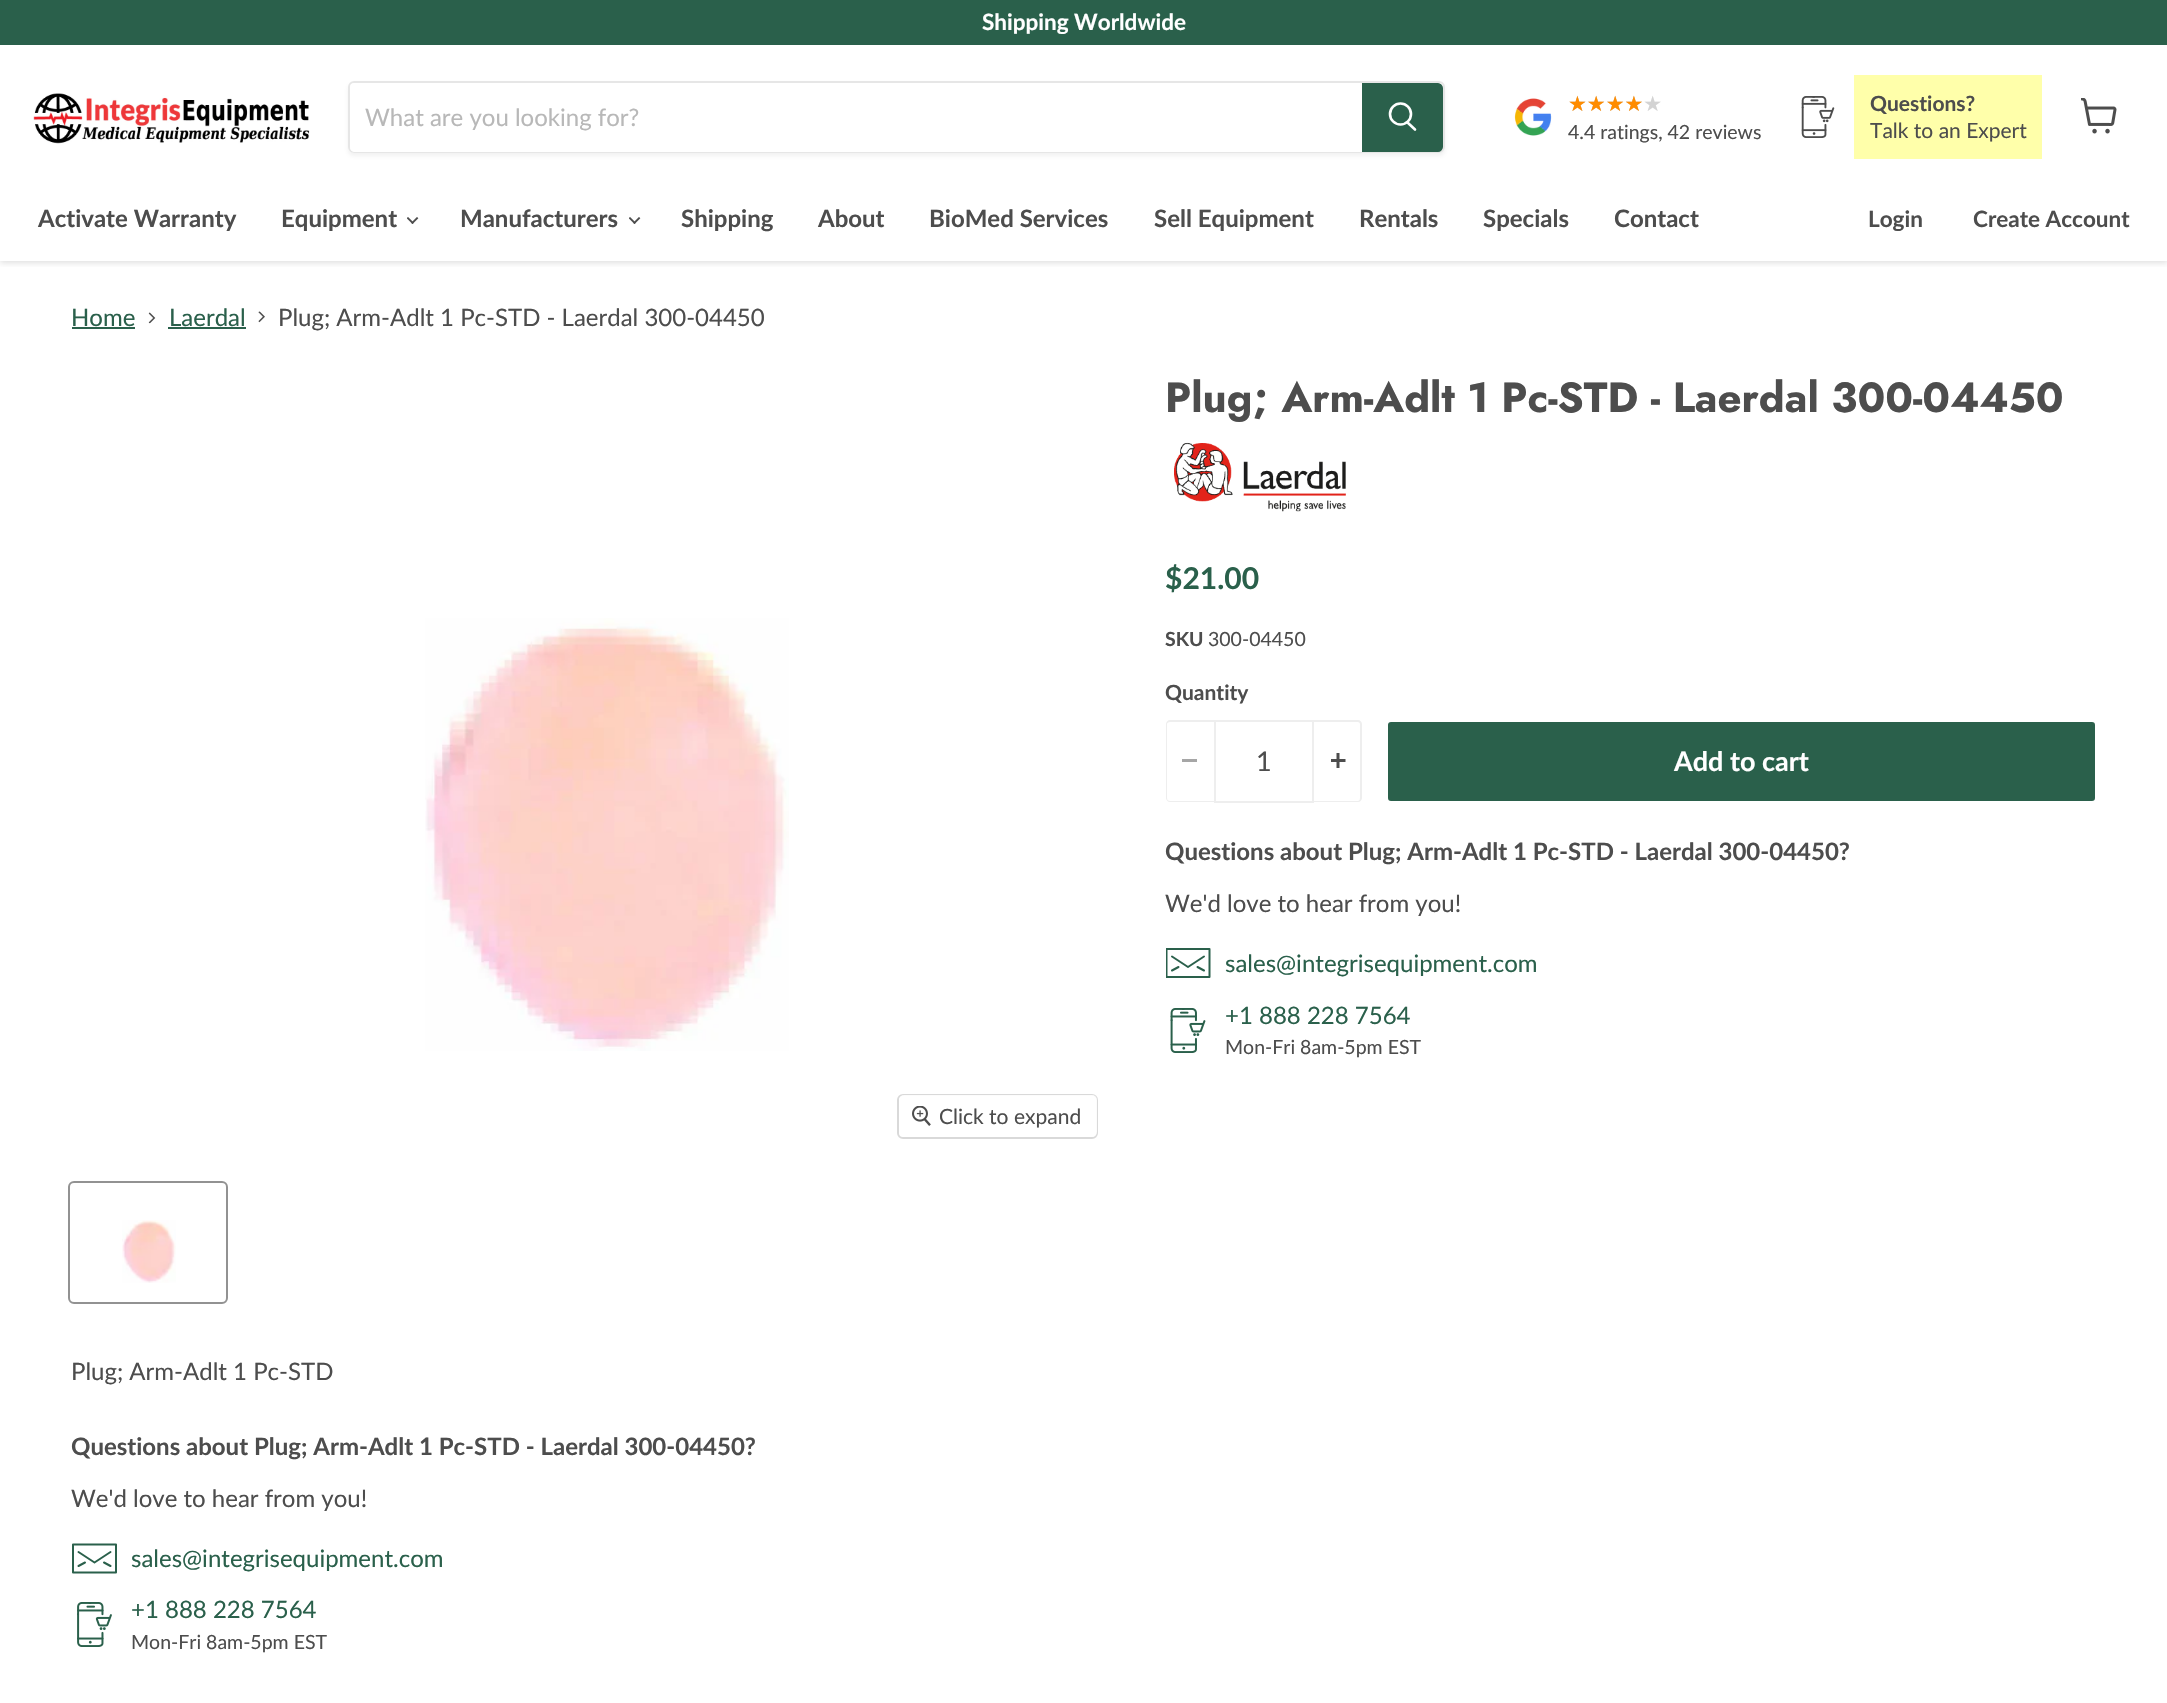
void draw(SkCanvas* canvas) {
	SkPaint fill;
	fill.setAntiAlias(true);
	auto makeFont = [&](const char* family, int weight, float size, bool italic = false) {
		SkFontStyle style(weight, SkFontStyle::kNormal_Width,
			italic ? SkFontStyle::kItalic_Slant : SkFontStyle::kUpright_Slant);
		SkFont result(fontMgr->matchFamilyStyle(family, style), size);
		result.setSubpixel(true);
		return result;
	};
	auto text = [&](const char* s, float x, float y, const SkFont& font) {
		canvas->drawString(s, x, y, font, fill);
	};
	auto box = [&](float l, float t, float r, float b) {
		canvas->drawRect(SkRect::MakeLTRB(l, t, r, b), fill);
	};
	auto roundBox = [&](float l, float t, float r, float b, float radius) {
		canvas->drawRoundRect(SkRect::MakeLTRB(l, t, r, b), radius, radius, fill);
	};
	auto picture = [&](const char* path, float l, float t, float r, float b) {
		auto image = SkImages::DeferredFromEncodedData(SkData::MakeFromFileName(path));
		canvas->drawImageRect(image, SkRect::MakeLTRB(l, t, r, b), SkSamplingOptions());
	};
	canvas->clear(0xFFFFFFFF);
	canvas->save();
	canvas->clipRect(SkRect::MakeLTRB(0, 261, 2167, 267));
	fill.setColor(0x40808080);
	fill.setMaskFilter(SkMaskFilter::MakeBlur(kNormal_SkBlurStyle, 3));
	canvas->drawRect(SkRect::MakeLTRB(0, 47, 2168, 263), fill);
	fill.setMaskFilter(nullptr);
	canvas->restore();
	fill.setColor(0xFF2A604B);
	box(0, 0, 2167, 45);
	picture("image0.png", 33, 93, 310, 144);
	canvas->save();
	canvas->clipPath(SkPathBuilder(SkPathFillType::kEvenOdd).moveTo(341, 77).lineTo(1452, 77).lineTo(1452, 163).lineTo(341, 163).close().moveTo(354, 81).lineTo(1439, 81).cubicTo(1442.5f, 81, 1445, 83.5f, 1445, 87).lineTo(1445, 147).cubicTo(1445, 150.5f, 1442.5f, 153, 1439, 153).lineTo(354, 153).cubicTo(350.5f, 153, 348, 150.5f, 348, 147).lineTo(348, 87).cubicTo(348, 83.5f, 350.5f, 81, 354, 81).close().detach(), true);
	fill.setColor(0x1C808080);
	fill.setMaskFilter(SkMaskFilter::MakeBlur(kNormal_SkBlurStyle, 2));
	canvas->drawRoundRect(SkRect::MakeLTRB(348, 84, 1445, 156), 6, 6, fill);
	fill.setMaskFilter(nullptr);
	canvas->restore();
	fill.setStyle(SkPaint::kStroke_Style);
	fill.setStrokeWidth(2);
	fill.setColor(0x33808080);
	canvas->drawRoundRect(SkRect::MakeLTRB(349, 82, 1444, 152), 5, 5, fill);
	fill.setStyle(SkPaint::kFill_Style);
	fill.setColor(0xFFFFFFFF);
	canvas->drawPath(SkPathBuilder().moveTo(355, 83).lineTo(1362, 83).lineTo(1362, 152).lineTo(355, 152).cubicTo(352, 152, 350, 150, 350, 147).lineTo(350, 88).cubicTo(350, 85, 352, 83, 355, 83).close().detach(), fill);
	fill.setColor(0xFF2A604B);
	canvas->drawPath(SkPathBuilder().moveTo(1363, 84).lineTo(1438, 84).cubicTo(1440, 84, 1442, 86, 1442, 88).lineTo(1442, 147).cubicTo(1442, 149, 1440, 151, 1438, 151).lineTo(1363, 151).close().detach(), fill);
	fill.setStyle(SkPaint::kStroke_Style);
	canvas->drawPath(SkPathBuilder().moveTo(1363, 84).lineTo(1438, 84).cubicTo(1440, 84, 1442, 86, 1442, 88).lineTo(1442, 147).cubicTo(1442, 149, 1440, 151, 1438, 151).lineTo(1363, 151).close().detach(), fill);
	fill.setStrokeWidth(2.6f);
	fill.setStrokeCap(SkPaint::kRound_Cap);
	fill.setColor(0xFFFFFFFF);
	canvas->drawPath(SkPathBuilder().moveTo(1415, 129.5f).lineTo(1407.5f, 122.5f).detach(), fill);
	fill.setStrokeCap(SkPaint::kButt_Cap);
	canvas->drawCircle(1400.5f, 114, 10.5f, fill);
	picture("image1.png", 1514, 98, 1552, 136);
	picture("image2.png", 1801, 96, 1835, 138);
	fill.setStyle(SkPaint::kFill_Style);
	fill.setColor(0xFFFFFFAA);
	box(1854, 75, 2042, 159);
	picture("image3.png", 2081, 98, 2117, 134);
	picture("image4.png", 407, 217, 419, 224);
	picture("image4.png", 629, 217, 641, 224);
	fill.setColor(0xFF2A604B);
	box(72, 327, 135, 329);
	picture("image5.png", 148, 312, 156, 324);
	box(168, 327, 246, 329);
	picture("image6.png", 258, 311, 265, 323);
	picture("image7.png", 1174, 442, 1346, 512);
	fill.setColor(0xFFEEEEEE);
	canvas->drawPath(SkPathBuilder(SkPathFillType::kEvenOdd).moveTo(1170, 720).lineTo(1214, 720).lineTo(1214, 802).lineTo(1170, 802).cubicTo(1168, 802, 1166, 800, 1166, 798).lineTo(1166, 724).cubicTo(1166, 722, 1168, 720, 1170, 720).close().moveTo(1170, 722).lineTo(1214, 722).lineTo(1214, 801).lineTo(1170, 801).cubicTo(1168, 801, 1167, 800, 1167, 798).lineTo(1167, 724).cubicTo(1167, 723, 1168, 722, 1170, 722).close().detach(), fill);
	fill.setColor(0xFFA6A6A6);
	box(1182, 759, 1197, 762);
	fill.setStyle(SkPaint::kStroke_Style);
	fill.setStrokeWidth(2);
	fill.setColor(0xFFEEEEEE);
	canvas->drawRect(SkRect::MakeLTRB(1215, 721, 1313, 802), fill);
	fill.setStyle(SkPaint::kFill_Style);
	canvas->drawPath(SkPathBuilder(SkPathFillType::kEvenOdd).moveTo(1314, 720).lineTo(1358, 720).cubicTo(1360, 720, 1362, 722, 1362, 724).lineTo(1362, 798).cubicTo(1362, 800, 1360, 802, 1358, 802).lineTo(1314, 802).close().moveTo(1314, 722).lineTo(1358, 722).cubicTo(1359, 722, 1360, 723, 1360, 724).lineTo(1360, 798).cubicTo(1360, 800, 1359, 801, 1358, 801).lineTo(1314, 801).close().detach(), fill);
	picture("image8.png", 1331, 753, 1346, 768);
	fill.setColor(0xFF2A604B);
	canvas->drawRoundRect(SkRect::MakeLTRB(1387, 721, 2096, 802), 4, 4, fill);
	fill.setStyle(SkPaint::kStroke_Style);
	fill.setColor(0xFFFFFFFF);
	canvas->drawRoundRect(SkRect::MakeLTRB(1387, 721, 2096, 802), 4, 4, fill);
	canvas->save();
	canvas->clipRect(SkRect::MakeLTRB(1166, 941, 1211, 986));
	fill.setStrokeCap(SkPaint::kRound_Cap);
	fill.setStrokeJoin(SkPaint::kRound_Join);
	fill.setColor(0xFF2A604B);
	canvas->drawPath(SkPathBuilder().moveTo(1166.5f, 949).lineTo(1209.5f, 949).lineTo(1209.5f, 977).lineTo(1166.5f, 977).close().detach(), fill);
	canvas->restore();
	canvas->drawPath(SkPathBuilder().moveTo(1204, 956.5f).lineTo(1188, 967).lineTo(1172, 956.5f).moveTo(1172, 970.5f).lineTo(1178.5f, 967).moveTo(1204, 970.5f).lineTo(1197.5f, 967).detach(), fill);
	picture("image9.png", 1170, 1008, 1206, 1053);
	picture("image10.png", 425, 618, 789, 1051);
	fill.setStrokeCap(SkPaint::kButt_Cap);
	fill.setStrokeJoin(SkPaint::kMiter_Join);
	fill.setColor(0xFFD9D9D9);
	canvas->drawRoundRect(SkRect::MakeLTRB(898, 1095, 1097, 1138), 5, 5, fill);
	fill.setStyle(SkPaint::kFill_Style);
	fill.setColor(0xE6FFFFFF);
	roundBox(899, 1095, 1097, 1137, 5);
	picture("image11.png", 912, 1106, 931, 1126);
	fill.setStyle(SkPaint::kStroke_Style);
	fill.setColor(0xFF929292);
	canvas->drawRoundRect(SkRect::MakeLTRB(69, 1182, 227, 1303), 5, 5, fill);
	picture("image12.png", 122, 1220, 176, 1283);
	fill.setStrokeCap(SkPaint::kRound_Cap);
	fill.setStrokeJoin(SkPaint::kRound_Join);
	fill.setColor(0xFF2A604B);
	canvas->drawPath(SkPathBuilder().moveTo(73, 1544.5f).lineTo(116, 1544.5f).lineTo(116, 1572.5f).lineTo(73, 1572.5f).close().moveTo(110.5f, 1552).lineTo(94.5f, 1562.5f).lineTo(78.5f, 1552).moveTo(78.5f, 1566).lineTo(85, 1562.5f).moveTo(110.5f, 1566).lineTo(104, 1562.5f).detach(), fill);
	picture("image13.png", 77, 1602, 112, 1647);
	auto font1 = makeFont("Lato", 700, 22.5f);
	fill.setStyle(SkPaint::kFill_Style);
	fill.setColor(0xFFFFFFFF);
	text("Shipping Worldwide", 982, 30, font1);
	auto font2 = makeFont("Lato", 400, 24);
	fill.setColor(0xFFB8B8B8);
	text("What are you looking for?", 365, 126, font2);
	auto font3 = makeFont("DejaVu Sans", 400, 21);
	fill.setColor(0xFFD3D3D3);
	text("★★★★★", 1568, 111, font3);
	fill.setColor(0xFFFF8C00);
	text("★★★★", 1568, 111, font3);
	auto font4 = makeFont("Lato", 400, 19.5f);
	fill.setColor(0xFF4D4D4D);
	text("4.4 ratings, 42 reviews", 1568, 139, font4);
	auto font5 = makeFont("Lato", 700, 21);
	text("Questions?", 1870, 111, font5);
	auto font6 = makeFont("Lato", 400, 21);
	text("Talk to an Expert", 1870, 138, font6);
	auto font7 = makeFont("Lato", 700, 24);
	text("Activate Warranty", 38, 227, font7);
	text("Equipment", 281, 227, font7);
	text("Manufacturers", 460, 227, font7);
	text("Shipping", 681, 227, font7);
	text("About", 818, 227, font7);
	text("BioMed Services", 929, 227, font7);
	text("Sell Equipment", 1154, 227, font7);
	text("Rentals", 1359, 227, font7);
	text("Specials", 1483, 227, font7);
	text("Contact", 1614, 227, font7);
	text("Login", 1868, 227, font1);
	text("Create Account", 1973, 227, font1);
	fill.setColor(0xFF2A604B);
	text("Home", 71, 326, font2);
	text("Laerdal", 169, 326, font2);
	fill.setColor(0xFF4D4D4D);
	text("Plug; Arm-Adlt 1 Pc-STD - Laerdal 300-04450", 278, 326, font2);
	auto font8 = makeFont("Jost", 700, 42);
	text("Plug; Arm-Adlt 1 Pc-STD - Laerdal 300-04450", 1165, 412, font8);
	auto font9 = makeFont("Lato", 700, 30);
	fill.setColor(0xFF2A604B);
	text("$21.00", 1165, 589, font9);
	auto font10 = makeFont("Lato", 700, 19.5f);
	fill.setColor(0xFF4D4D4D);
	text("SKU", 1165, 646, font10);
	text("300-04450", 1208, 646, font4);
	text("Quantity", 1165, 700, font5);
	auto font11 = makeFont("Lato", 400, 27);
	text("1", 1256, 771, font11);
	auto font12 = makeFont("Lato", 700, 27);
	fill.setColor(0xFFFFFFFF);
	text("Add to cart", 1674, 771, font12);
	fill.setColor(0xFF4D4D4D);
	text("Questions about Plug; Arm-Adlt 1 Pc-STD - Laerdal 300-04450?", 1165, 860, font7);
	text("We'd love to hear from you!", 1165, 912, font2);
	fill.setColor(0xFF2A604B);
	text("sales@integrisequipment.com", 1225, 972, font2);
	text("+1 888 228 7564", 1225, 1024, font2);
	fill.setColor(0xFF4D4D4D);
	text("Mon-Fri 8am-5pm EST", 1225, 1054, font4);
	text("Click to expand", 939, 1124, font6);
	text("Plug; Arm-Adlt 1 Pc-STD", 71, 1380, font2);
	text("Questions about Plug; Arm-Adlt 1 Pc-STD - Laerdal 300-04450?", 71, 1455, font7);
	text("We'd love to hear from you!", 71, 1507, font2);
	fill.setColor(0xFF2A604B);
	text("sales@integrisequipment.com", 131, 1567, font2);
	text("+1 888 228 7564", 131, 1618, font2);
	fill.setColor(0xFF4D4D4D);
	text("Mon-Fri 8am-5pm EST", 131, 1649, font4);
}
